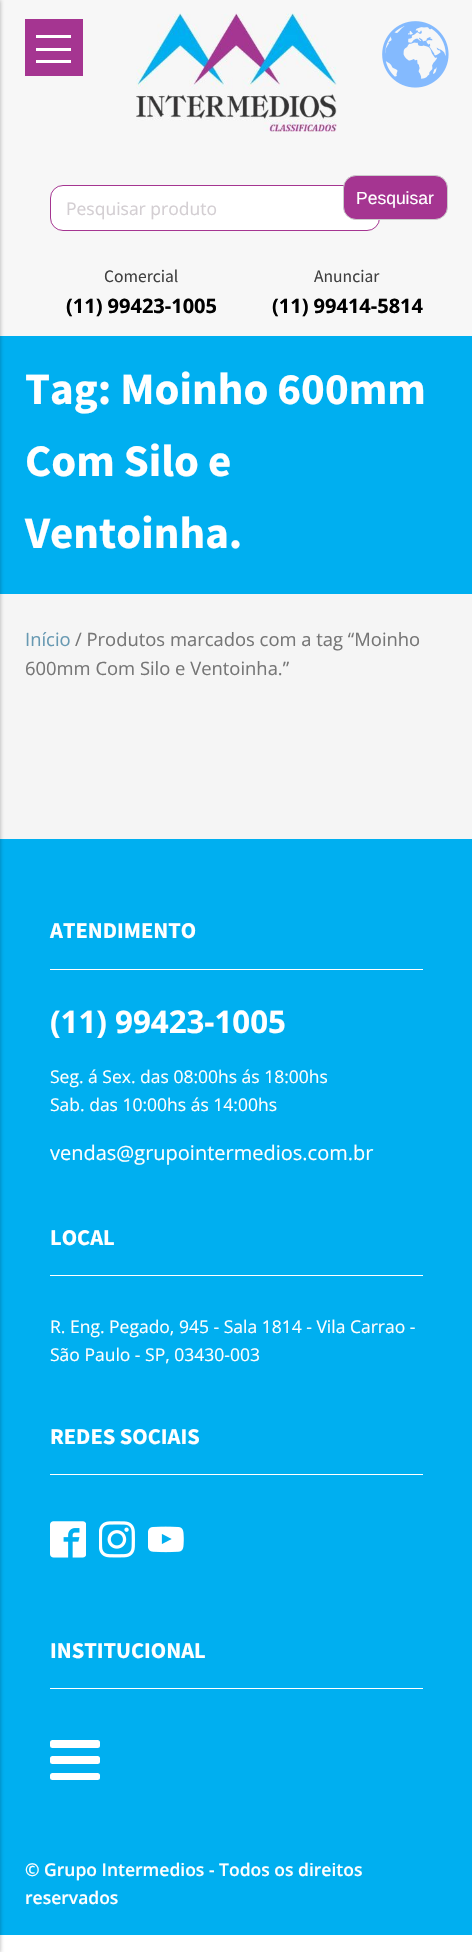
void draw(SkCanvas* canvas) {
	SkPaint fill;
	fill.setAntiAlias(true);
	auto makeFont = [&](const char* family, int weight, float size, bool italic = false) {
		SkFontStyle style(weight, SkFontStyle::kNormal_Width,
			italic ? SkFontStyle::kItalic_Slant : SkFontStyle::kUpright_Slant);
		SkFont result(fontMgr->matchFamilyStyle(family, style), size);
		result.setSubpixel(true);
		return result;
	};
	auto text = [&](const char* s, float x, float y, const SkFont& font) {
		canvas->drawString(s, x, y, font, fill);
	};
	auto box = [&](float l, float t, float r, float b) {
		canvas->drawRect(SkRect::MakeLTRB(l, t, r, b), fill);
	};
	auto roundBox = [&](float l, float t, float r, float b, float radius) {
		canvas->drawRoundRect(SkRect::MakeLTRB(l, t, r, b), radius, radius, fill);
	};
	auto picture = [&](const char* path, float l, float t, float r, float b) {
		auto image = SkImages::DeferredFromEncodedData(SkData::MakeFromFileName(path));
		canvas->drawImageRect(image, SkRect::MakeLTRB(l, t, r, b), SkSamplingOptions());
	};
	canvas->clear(0xFFFFFFFF);
	fill.setColor(0xFFF7F7F7);
	box(0, 0, 472, 336);
	picture("image0.png", 136, 13, 337, 132);
	fill.setColor(0xFFFFFFFF);
	canvas->drawRoundRect(SkRect::MakeLTRB(50.5f, 185.5f, 379.5f, 230.5f), 12.5f, 12.5f, fill);
	fill.setStyle(SkPaint::kStroke_Style);
	fill.setStrokeWidth(1);
	fill.setColor(0xFFA53591);
	canvas->drawRoundRect(SkRect::MakeLTRB(50.5f, 185.5f, 379.5f, 230.5f), 12.5f, 12.5f, fill);
	fill.setStyle(SkPaint::kFill_Style);
	canvas->drawRoundRect(SkRect::MakeLTRB(343.5f, 175.5f, 447.5f, 219.5f), 12.5f, 12.5f, fill);
	fill.setStyle(SkPaint::kStroke_Style);
	fill.setColor(0xFFCCCCCC);
	canvas->drawRoundRect(SkRect::MakeLTRB(343.5f, 175.5f, 447.5f, 219.5f), 12.5f, 12.5f, fill);
	fill.setStyle(SkPaint::kFill_Style);
	fill.setColor(0xFF00AFF0);
	box(0, 336, 472, 594);
	fill.setColor(0xFFF5F5F5);
	box(0, 594, 472, 839);
	fill.setColor(0xFF00AFF0);
	box(0, 839, 472, 1935);
	fill.setColor(0x4D000000);
	fill.setMaskFilter(SkMaskFilter::MakeBlur(kNormal_SkBlurStyle, 2));
	canvas->drawRect(SkRect::MakeLTRB(-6, 0, 0, 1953), fill);
	fill.setMaskFilter(nullptr);
	fill.setColor(0xFFA53591);
	box(25, 19, 83, 76);
	fill.setColor(0xFFFFFFFF);
	box(36, 35, 71, 38);
	box(36, 48, 71, 51);
	box(36, 60, 71, 63);
	picture("image1.png", 382, 21, 449, 88);
	box(50, 969, 423, 970);
	box(50, 1275, 423, 1276);
	box(50, 1474, 423, 1475);
	picture("image2.png", 50, 1521, 86, 1558);
	picture("image3.png", 99, 1521, 135, 1558);
	picture("image4.png", 148, 1526, 184, 1553);
	box(50, 1688, 423, 1689);
	roundBox(50, 1740, 100, 1748, 2.5f);
	roundBox(50, 1756, 100, 1764, 2.5f);
	roundBox(50, 1773, 100, 1780, 2.5f);
	auto font1 = makeFont("Open Sans", 400, 17.5f);
	fill.setColor(0xFFD3CED2);
	text("Pesquisar produto", 66, 215, font1);
	auto font2 = makeFont("Liberation Sans", 400, 17.5f);
	fill.setColor(0xFFFFFFFF);
	text("Pesquisar", 356, 204, font2);
	auto font3 = makeFont("Source Sans Pro", 400, 17.5f);
	fill.setColor(0xFF404040);
	text("Comercial", 104, 282, font3);
	auto font4 = makeFont("Open Sans", 700, 20);
	fill.setColor(0xFF000000);
	text("(11) 99423-1005", 66, 313, font4);
	fill.setColor(0xFF404040);
	text("Anunciar", 314, 282, font3);
	fill.setColor(0xFF000000);
	text("(11) 99414-5814", 272, 313, font4);
	auto font5 = makeFont("Source Sans Pro", 700, 45);
	fill.setColor(0xFFFFFFFF);
	text("Tag: Moinho 600mm", 25, 404, font5);
	text("Com Silo e", 25, 476, font5);
	text("Ventoinha.", 25, 548, font5);
	auto font6 = makeFont("Open Sans", 400, 18.4f);
	fill.setColor(0xFF6799B2);
	text("Início", 25, 646, font6);
	fill.setColor(0xFF767676);
	text("/ Produtos marcados com a tag “Moinho", 75, 646, font6);
	text("600mm Com Silo e Ventoinha.”", 25, 675, font6);
	auto font7 = makeFont("Source Sans Pro", 700, 22.5f);
	fill.setColor(0xFFFFFFFF);
	text("ATENDIMENTO", 50, 938, font7);
	auto font8 = makeFont("Open Sans", 700, 31.25f);
	text("(11) 99423-1005", 50, 1033, font8);
	text("Seg. á Sex. das 08:00hs ás 18:00hs", 50, 1083, font1);
	text("Sab. das 10:00hs ás 14:00hs", 50, 1111, font1);
	auto font9 = makeFont("Open Sans", 400, 20);
	text("vendas@grupointermedios.com.br", 50, 1160, font9);
	text("LOCAL", 50, 1245, font7);
	text("R. Eng. Pegado, 945 - Sala 1814 - Vila Carrao -", 50, 1333, font1);
	text("São Paulo - SP, 03430-003", 50, 1361, font1);
	text("REDES SOCIAIS", 50, 1444, font7);
	text("INSTITUCIONAL", 50, 1658, font7);
	auto font10 = makeFont("Open Sans", 600, 17.5f);
	text("© Grupo Intermedios - Todos os direitos", 25, 1876, font10);
	text("reservados", 25, 1904, font10);
}
